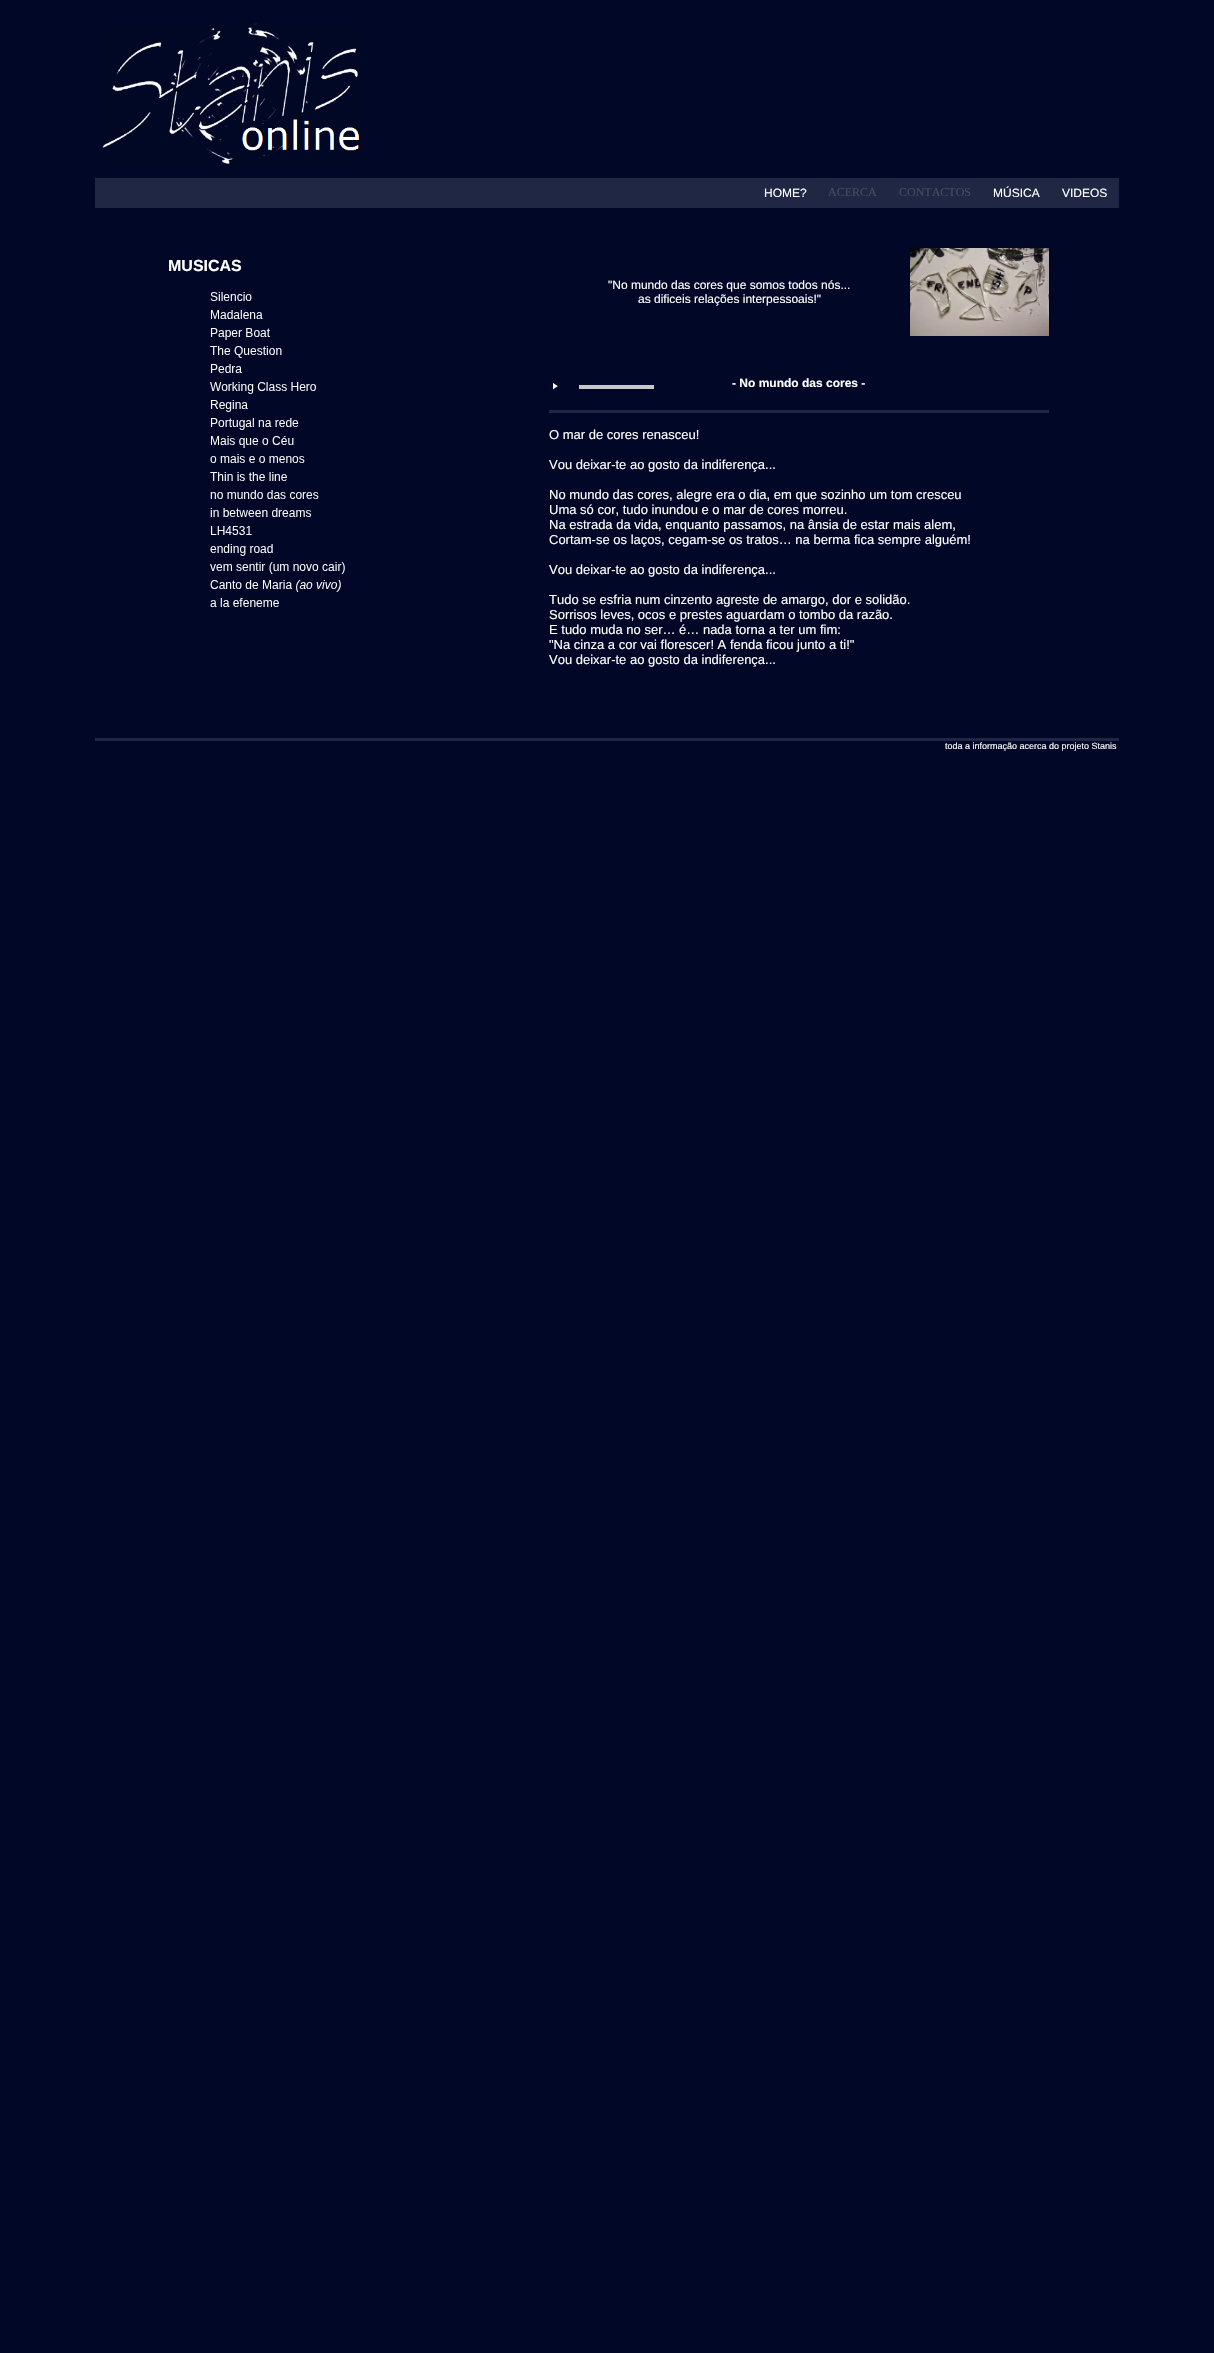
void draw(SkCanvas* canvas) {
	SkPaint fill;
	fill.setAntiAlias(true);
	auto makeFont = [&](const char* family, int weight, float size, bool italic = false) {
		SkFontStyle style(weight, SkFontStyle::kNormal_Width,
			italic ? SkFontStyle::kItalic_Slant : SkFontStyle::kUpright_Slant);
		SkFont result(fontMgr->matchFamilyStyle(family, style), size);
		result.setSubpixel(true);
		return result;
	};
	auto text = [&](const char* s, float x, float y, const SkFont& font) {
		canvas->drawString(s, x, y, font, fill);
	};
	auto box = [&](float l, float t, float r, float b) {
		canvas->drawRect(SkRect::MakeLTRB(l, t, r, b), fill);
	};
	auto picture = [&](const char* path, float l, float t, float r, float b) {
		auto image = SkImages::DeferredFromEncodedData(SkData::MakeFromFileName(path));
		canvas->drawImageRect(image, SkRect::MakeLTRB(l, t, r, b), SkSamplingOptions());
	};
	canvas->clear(0xFF010726);
	picture("image0.png", 102, 22, 360, 164);
	fill.setColor(0xFF202744);
	box(95, 178, 1119, 208);
	picture("image1.png", 210, 292, 345, 607);
	picture("image2.png", 910, 248, 1049, 336);
	picture("image3.png", 549, 380, 561, 392);
	fill.setColor(0xFFC8C8C8);
	box(579, 385, 654, 389);
	fill.setColor(0xFF202744);
	box(549, 410, 1049, 413);
	box(95, 738, 1119, 741);
	auto font1 = makeFont("Liberation Sans", 400, 12);
	fill.setColor(0xFFFFFFFF);
	text("HOME?", 764, 197, font1);
	auto font2 = makeFont("Liberation Serif", 400, 12);
	fill.setColor(0xFF444D5F);
	text("ACERCA", 828, 196, font2);
	text("CONTACTOS", 899, 196, font2);
	fill.setColor(0xFFFFFFFF);
	text("MÚSICA", 993, 197, font1);
	text("VIDEOS", 1062, 197, font1);
	auto font3 = makeFont("Liberation Sans", 700, 16);
	text("MUSICAS", 168, 271, font3);
	text("\"No mundo das cores que somos todos nós...", 608, 289, font1);
	text("as dificeis relações interpessoais!\"", 638, 303, font1);
	auto font4 = makeFont("Liberation Sans", 700, 12);
	text("- No mundo das cores -", 732, 387, font4);
	auto font5 = makeFont("Liberation Sans", 400, 13);
	text("O mar de cores renasceu!", 549, 439, font5);
	text("Vou deixar-te ao gosto da indiferença...", 549, 469, font5);
	text("No mundo das cores, alegre era o dia, em que sozinho um tom cresceu", 549, 499, font5);
	text("Uma só cor, tudo inundou e o mar de cores morreu.", 549, 514, font5);
	text("Na estrada da vida, enquanto passamos, na ânsia de estar mais alem,", 549, 529, font5);
	text("Cortam-se os laços, cegam-se os tratos… na berma fica sempre alguém!", 549, 544, font5);
	text("Vou deixar-te ao gosto da indiferença...", 549, 574, font5);
	text("Tudo se esfria num cinzento agreste de amargo, dor e solidão.", 549, 604, font5);
	text("Sorrisos leves, ocos e prestes aguardam o tombo da razão.", 549, 619, font5);
	text("E tudo muda no ser… é… nada torna a ter um fim:", 549, 634, font5);
	text("\"Na cinza a cor vai florescer! A fenda ficou junto a ti!\"", 549, 649, font5);
	text("Vou deixar-te ao gosto da indiferença...", 549, 664, font5);
	auto font6 = makeFont("Liberation Sans", 400, 9);
	text("toda a informação acerca do projeto Stanis", 945, 749, font6);
}
